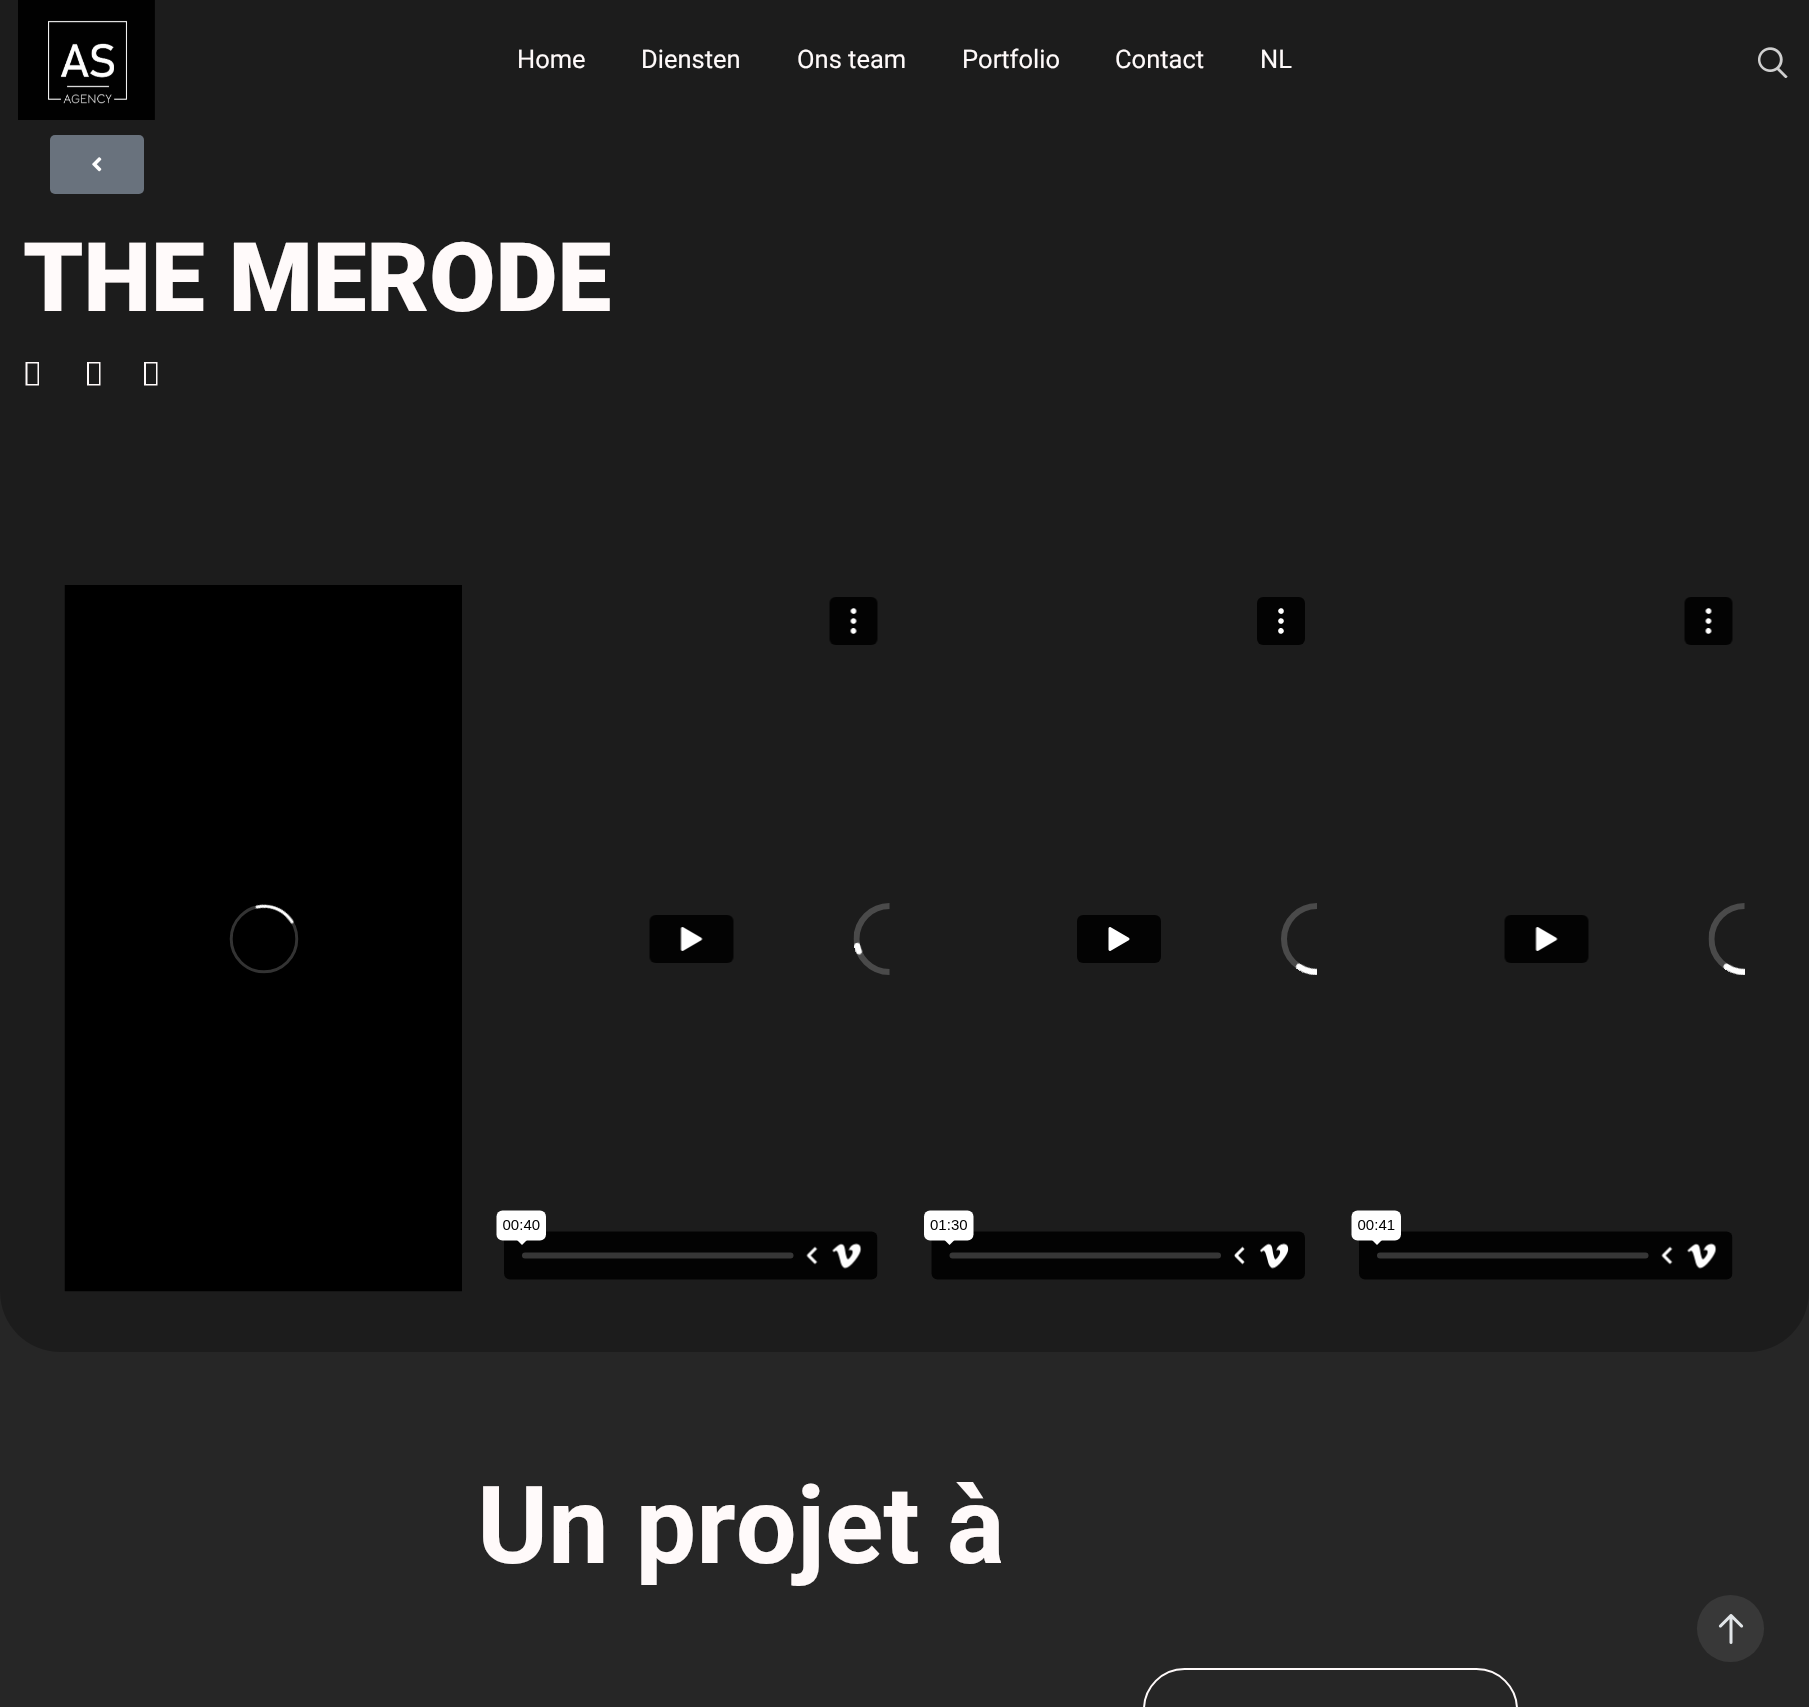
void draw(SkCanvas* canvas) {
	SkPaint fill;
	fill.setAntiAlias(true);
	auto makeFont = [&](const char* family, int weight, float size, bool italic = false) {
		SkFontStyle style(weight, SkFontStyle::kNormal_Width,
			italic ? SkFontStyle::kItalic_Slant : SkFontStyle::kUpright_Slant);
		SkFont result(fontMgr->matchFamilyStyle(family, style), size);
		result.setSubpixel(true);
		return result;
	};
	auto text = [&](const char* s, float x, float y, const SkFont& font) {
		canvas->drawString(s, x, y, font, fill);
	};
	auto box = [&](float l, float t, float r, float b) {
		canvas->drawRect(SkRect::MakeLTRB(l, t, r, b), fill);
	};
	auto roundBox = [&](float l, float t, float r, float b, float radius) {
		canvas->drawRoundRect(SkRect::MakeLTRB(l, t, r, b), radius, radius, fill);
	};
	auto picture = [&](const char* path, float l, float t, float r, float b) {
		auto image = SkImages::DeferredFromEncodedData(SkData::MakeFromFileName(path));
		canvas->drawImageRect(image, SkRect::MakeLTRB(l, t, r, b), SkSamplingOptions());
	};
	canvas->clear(0xFF1C1C1C);
	picture("image0.png", 18, 0, 155, 120);
	picture("image1.png", 1758, 47, 1788, 78);
	fill.setColor(0xFF262626);
	box(0, 1292, 1809, 1707);
	fill.setColor(0xFF1C1C1C);
	canvas->drawPath(SkPathBuilder().moveTo(0, 120).lineTo(1809, 120).lineTo(1809, 1292).cubicTo(1809, 1325, 1782, 1352, 1749, 1352).lineTo(60, 1352).cubicTo(27, 1352, 0, 1325, 0, 1292).close().detach(), fill);
	fill.setColor(0xFF69727D);
	roundBox(50, 135, 144, 194, 5);
	picture("image2.png", 92, 157, 102, 172);
	fill.setColor(0xFFFFFAFA);
	canvas->drawPath(SkPathBuilder().moveTo(25.5f, 385.5f).lineTo(25.5f, 362).lineTo(39, 362).lineTo(39, 385.5f).close().moveTo(27.5f, 384).lineTo(37.5f, 384).lineTo(37.5f, 363.5f).lineTo(27.5f, 363.5f).close().detach(), fill);
	canvas->drawPath(SkPathBuilder().moveTo(87, 385.5f).lineTo(87, 362).lineTo(100.5f, 362).lineTo(100.5f, 385.5f).close().moveTo(89, 384).lineTo(99, 384).lineTo(99, 363.5f).lineTo(89, 363.5f).close().detach(), fill);
	canvas->drawPath(SkPathBuilder().moveTo(144, 385.5f).lineTo(144, 362).lineTo(157.5f, 362).lineTo(157.5f, 385.5f).close().moveTo(146, 384).lineTo(156, 384).lineTo(156, 363.5f).lineTo(146, 363.5f).close().detach(), fill);
	picture("image3.png", 64, 585, 462, 1292);
	picture("image4.png", 496, 597, 890, 1280);
	picture("image5.png", 923, 597, 1317, 1280);
	picture("image6.png", 1351, 597, 1745, 1280);
	fill.setStyle(SkPaint::kStroke_Style);
	fill.setStrokeWidth(2);
	canvas->drawRoundRect(SkRect::MakeLTRB(1144, 1669, 1517, 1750), 41, 41, fill);
	fill.setStyle(SkPaint::kFill_Style);
	fill.setColor(0xFF383838);
	canvas->drawCircle(1730.5f, 1628.5f, 33.5f, fill);
	picture("image7.png", 1718, 1614, 1744, 1644);
	auto font1 = makeFont("Roboto", 400, 25.5f);
	fill.setColor(0xFFFFFAFA);
	text("Home", 517, 68, font1);
	text("Diensten", 641, 68, font1);
	text("Ons team", 797, 68, font1);
	text("Portfolio", 962, 68, font1);
	text("Contact", 1115, 68, font1);
	text("NL", 1260, 68, font1);
	auto font2 = makeFont("Roboto", 900, 96);
	text("THE MERODE", 23, 311, font2);
	auto font3 = makeFont("Roboto", 700, 108);
	text("Un projet à", 477, 1563, font3);
}
